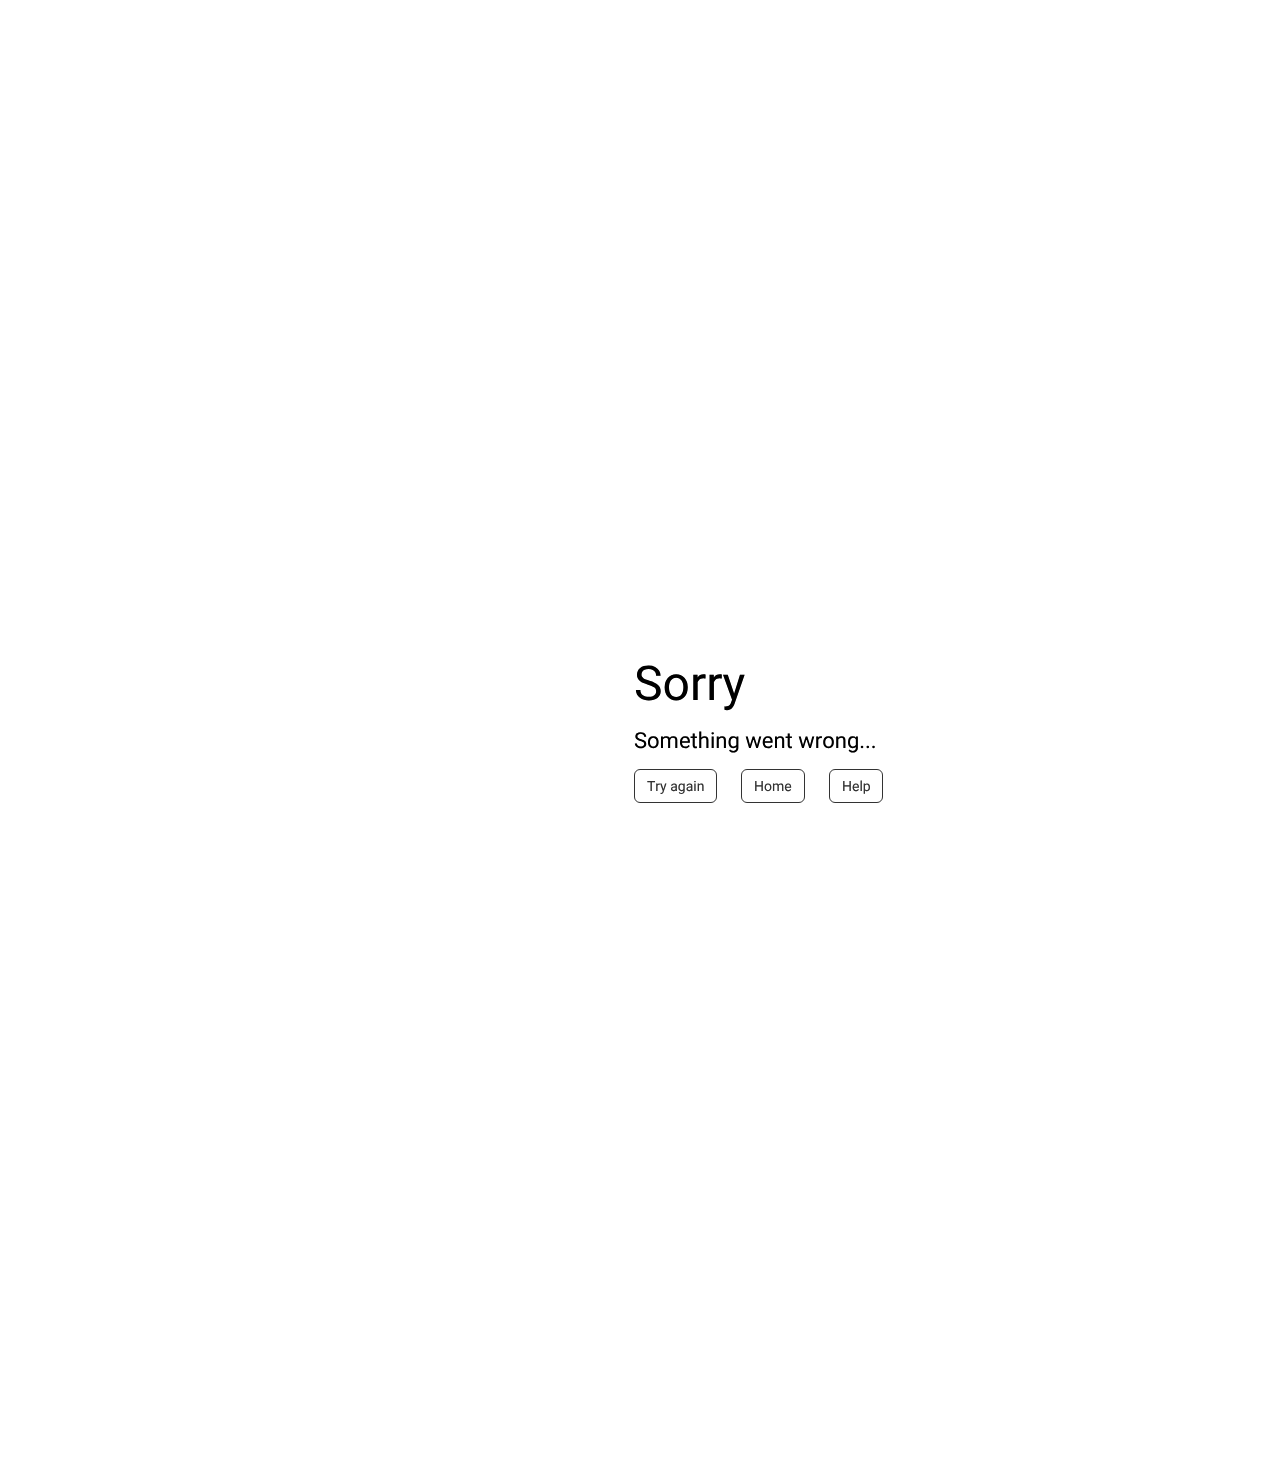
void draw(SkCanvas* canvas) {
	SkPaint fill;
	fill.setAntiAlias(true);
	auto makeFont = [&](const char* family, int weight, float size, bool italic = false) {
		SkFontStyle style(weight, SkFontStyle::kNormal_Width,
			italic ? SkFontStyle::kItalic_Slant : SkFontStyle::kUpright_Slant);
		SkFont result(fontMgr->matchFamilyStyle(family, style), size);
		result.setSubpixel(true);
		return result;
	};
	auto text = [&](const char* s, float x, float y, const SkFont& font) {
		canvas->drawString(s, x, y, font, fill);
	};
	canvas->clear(0xFFFFFFFF);
	fill.setStyle(SkPaint::kStroke_Style);
	fill.setStrokeWidth(1);
	fill.setColor(0xFF333333);
	canvas->drawRoundRect(SkRect::MakeLTRB(634.5f, 769.5f, 716.5f, 802.5f), 5.5f, 5.5f, fill);
	canvas->drawRoundRect(SkRect::MakeLTRB(741.5f, 769.5f, 804.5f, 802.5f), 5.5f, 5.5f, fill);
	canvas->drawRoundRect(SkRect::MakeLTRB(829.5f, 769.5f, 882.5f, 802.5f), 5.5f, 5.5f, fill);
	auto font1 = makeFont("Roboto", 400, 48);
	fill.setStyle(SkPaint::kFill_Style);
	fill.setColor(0xFF000000);
	text("Sorry", 634, 700, font1);
	auto font2 = makeFont("Roboto", 400, 22);
	text("Something went wrong...", 634, 748, font2);
	auto font3 = makeFont("Roboto", 400, 14);
	fill.setColor(0xFF333333);
	text("Try again", 647, 791, font3);
	text("Home", 754, 791, font3);
	text("Help", 842, 791, font3);
}
